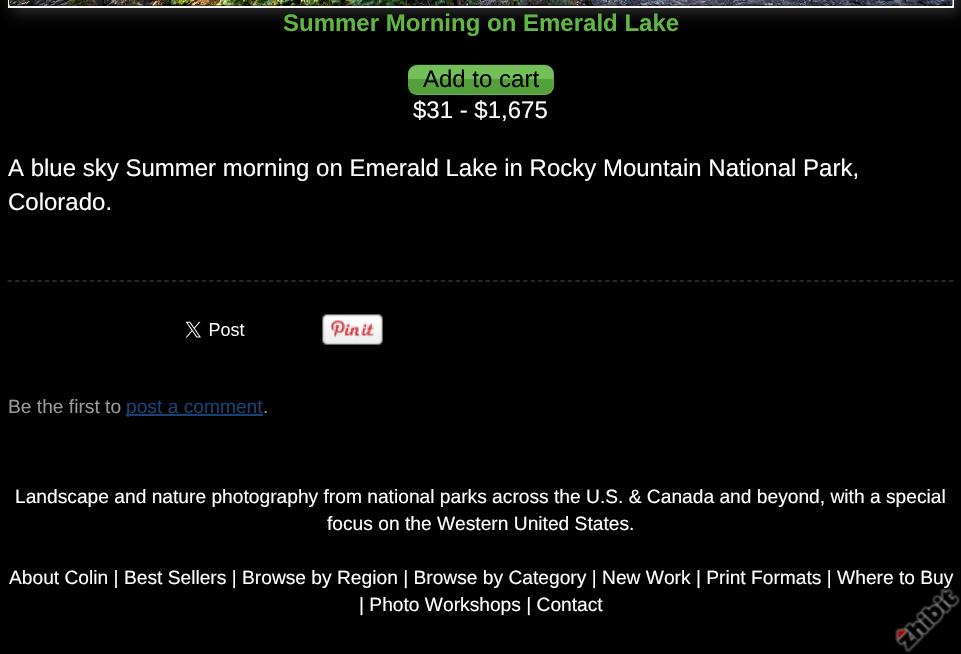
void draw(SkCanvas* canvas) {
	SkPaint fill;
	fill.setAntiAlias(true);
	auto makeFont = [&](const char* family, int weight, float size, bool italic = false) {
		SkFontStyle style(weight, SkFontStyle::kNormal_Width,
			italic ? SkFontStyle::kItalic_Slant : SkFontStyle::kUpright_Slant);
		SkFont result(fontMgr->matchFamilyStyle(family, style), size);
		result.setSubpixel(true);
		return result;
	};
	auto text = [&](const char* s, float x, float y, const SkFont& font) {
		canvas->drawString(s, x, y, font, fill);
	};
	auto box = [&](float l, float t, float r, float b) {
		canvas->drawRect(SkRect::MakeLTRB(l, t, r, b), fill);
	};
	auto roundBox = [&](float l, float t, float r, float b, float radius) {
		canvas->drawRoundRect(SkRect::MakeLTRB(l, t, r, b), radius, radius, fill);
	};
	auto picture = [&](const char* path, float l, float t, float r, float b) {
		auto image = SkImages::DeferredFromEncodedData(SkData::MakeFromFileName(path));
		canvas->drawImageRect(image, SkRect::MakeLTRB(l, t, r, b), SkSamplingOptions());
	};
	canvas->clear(0xFF000000);
	fill.setColor(0xFF333333);
	fill.setMaskFilter(SkMaskFilter::MakeBlur(kNormal_SkBlurStyle, 7.5f));
	canvas->drawRect(SkRect::MakeLTRB(12, -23, 959, 12), fill);
	fill.setMaskFilter(nullptr);
	fill.setColor(0xFF000000);
	box(8, 5, 954, 6);
	fill.setStyle(SkPaint::kStroke_Style);
	fill.setStrokeWidth(2);
	fill.setColor(0xFFFFFFFF);
	canvas->drawRect(SkRect::MakeLTRB(9, -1, 953, 7), fill);
	picture("image0.png", 9, 0, 953, 6);
	fill.setStyle(SkPaint::kFill_Style);
	fill.setColor(0xFF60B642);
	roundBox(408, 65, 554, 95, 9);
	picture("image1.png", 408, 64, 554, 94);
	fill.setStyle(SkPaint::kStroke_Style);
	fill.setStrokeWidth(1.5f);
	fill.setColor(0xFF333333);
	fill.setPathEffect(SkDashPathEffect::Make({{4.5f, 2.97f}}, 0));
	canvas->drawPath(SkPathBuilder().moveTo(7.5f, 281).lineTo(954, 281).detach(), fill);
	fill.setPathEffect(nullptr);
	picture("image2.png", 185, 321, 245, 338);
	picture("image3.png", 322, 314, 383, 345);
	fill.setStyle(SkPaint::kFill_Style);
	fill.setColor(0xFF164374);
	box(126, 414, 263, 416);
	auto font1 = makeFont("Liberation Sans", 700, 24);
	fill.setColor(0xFF60B642);
	text("Summer Morning on Emerald Lake", 283, 31, font1);
	auto font2 = makeFont("Liberation Sans", 400, 24);
	fill.setColor(0xFF000000);
	text("Add to cart", 423, 87, font2);
	fill.setColor(0xFFFFFFFF);
	text("$31 - $1,675", 413, 118, font2);
	text("A blue sky Summer morning on Emerald Lake in Rocky Mountain National Park,", 8, 176, font2);
	text("Colorado.", 8, 210, font2);
	auto font3 = makeFont("Liberation Sans", 400, 19.2f);
	fill.setColor(0xFF999999);
	text("Be the first to", 8, 413, font3);
	fill.setColor(0xFF164374);
	text("post a comment", 126, 413, font3);
	fill.setColor(0xFF999999);
	text(".", 263, 413, font3);
	fill.setColor(0xFFFFFFFF);
	text("Landscape and nature photography from national parks across the U.S. & Canada and beyond, with a special", 15, 503, font3);
	text("focus on the Western United States.", 327, 530, font3);
	text("About Colin | Best Sellers | Browse by Region | Browse by Category | New Work | Print Formats | Where to Buy", 9, 584, font3);
	text("| Photo Workshops | Contact", 359, 611, font3);
	picture("image4.png", 895, 588, 960, 653);
}
